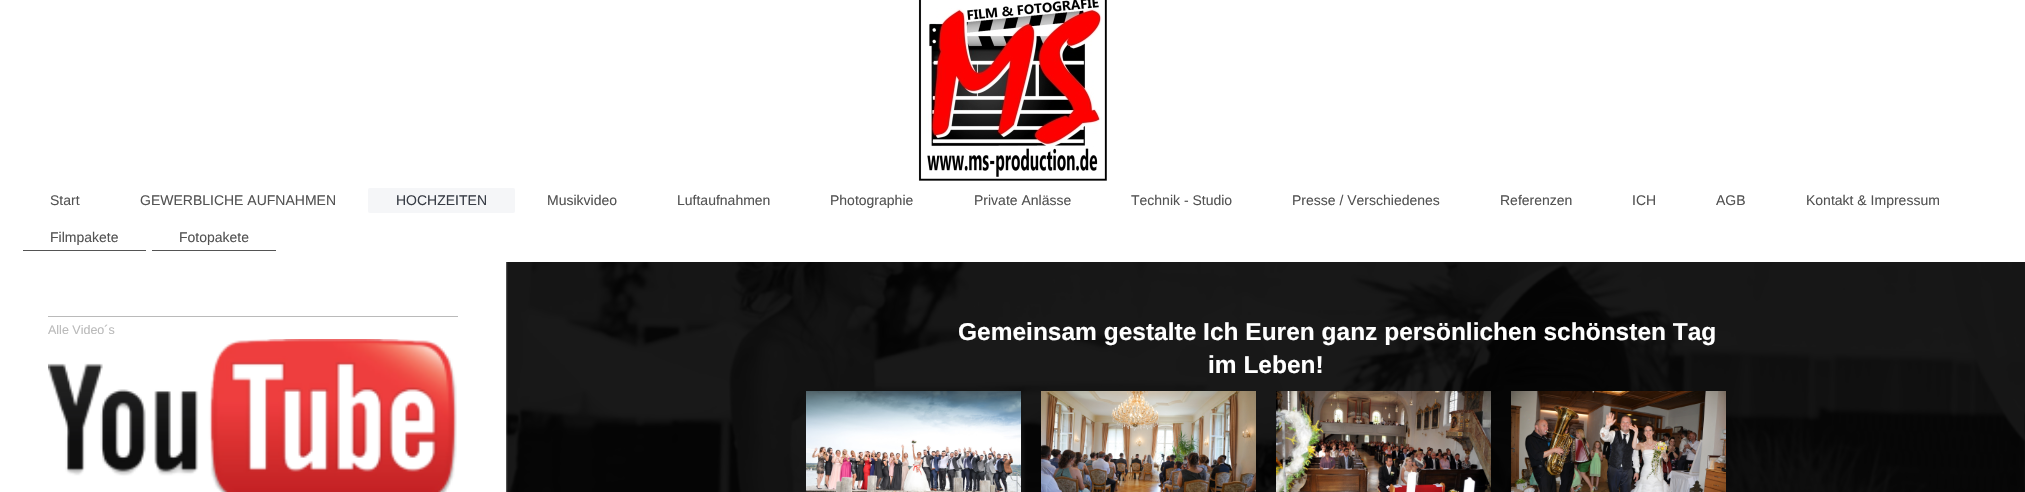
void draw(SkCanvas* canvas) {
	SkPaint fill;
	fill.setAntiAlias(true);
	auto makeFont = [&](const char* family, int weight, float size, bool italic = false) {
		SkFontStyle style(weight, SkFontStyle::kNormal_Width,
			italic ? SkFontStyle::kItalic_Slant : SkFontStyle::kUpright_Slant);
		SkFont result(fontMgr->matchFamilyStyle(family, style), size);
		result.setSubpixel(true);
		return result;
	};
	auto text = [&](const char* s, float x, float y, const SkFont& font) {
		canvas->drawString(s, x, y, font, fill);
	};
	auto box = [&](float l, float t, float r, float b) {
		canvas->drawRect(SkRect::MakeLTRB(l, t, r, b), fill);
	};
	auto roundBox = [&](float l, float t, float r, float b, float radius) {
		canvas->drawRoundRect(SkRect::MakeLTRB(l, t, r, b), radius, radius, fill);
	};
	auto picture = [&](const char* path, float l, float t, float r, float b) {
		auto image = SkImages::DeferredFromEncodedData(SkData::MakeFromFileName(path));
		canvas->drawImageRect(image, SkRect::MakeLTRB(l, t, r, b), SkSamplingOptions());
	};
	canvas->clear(0xFFFFFFFF);
	picture("image0.png", 918, 0, 1107, 181);
	fill.setColor(0xFFF5F6F8);
	roundBox(368, 188, 515, 213, 2);
	fill.setColor(0xFF535353);
	box(23, 250, 146, 251);
	box(152, 250, 276, 251);
	fill.setColor(0xFFBABABA);
	box(48, 316, 458, 317);
	picture("image1.png", 48, 339, 457, 492);
	picture("image2.png", 506, 262, 2025, 492);
	picture("image3.png", 806, 391, 1021, 492);
	picture("image4.png", 1041, 391, 1256, 492);
	picture("image5.png", 1276, 391, 1491, 492);
	picture("image6.png", 1511, 391, 1726, 492);
	auto font1 = makeFont("Liberation Sans", 400, 14);
	fill.setColor(0xFF535353);
	text("Start", 50, 205, font1);
	text("GEWERBLICHE AUFNAHMEN", 140, 205, font1);
	fill.setColor(0xFF383D46);
	text("HOCHZEITEN", 396, 205, font1);
	fill.setColor(0xFF535353);
	text("Musikvideo", 547, 205, font1);
	text("Luftaufnahmen", 677, 205, font1);
	text("Photographie", 830, 205, font1);
	text("Private Anlässe", 974, 205, font1);
	text("Technik - Studio", 1131, 205, font1);
	text("Presse / Verschiedenes", 1292, 205, font1);
	text("Referenzen", 1500, 205, font1);
	text("ICH", 1632, 205, font1);
	text("AGB", 1716, 205, font1);
	text("Kontakt & Impressum", 1806, 205, font1);
	text("Filmpakete", 50, 242, font1);
	text("Fotopakete", 179, 242, font1);
	auto font2 = makeFont("Liberation Sans", 400, 12.5f);
	fill.setColor(0xFFBABABA);
	text("Alle Video´s", 48, 334, font2);
	auto font3 = makeFont("Liberation Sans", 700, 24.5f);
	fill.setColor(0xFFFFFFFF);
	text("Gemeinsam gestalte Ich Euren ganz persönlichen schönsten Tag", 958, 340, font3);
	text("im Leben!", 1208, 373, font3);
}
